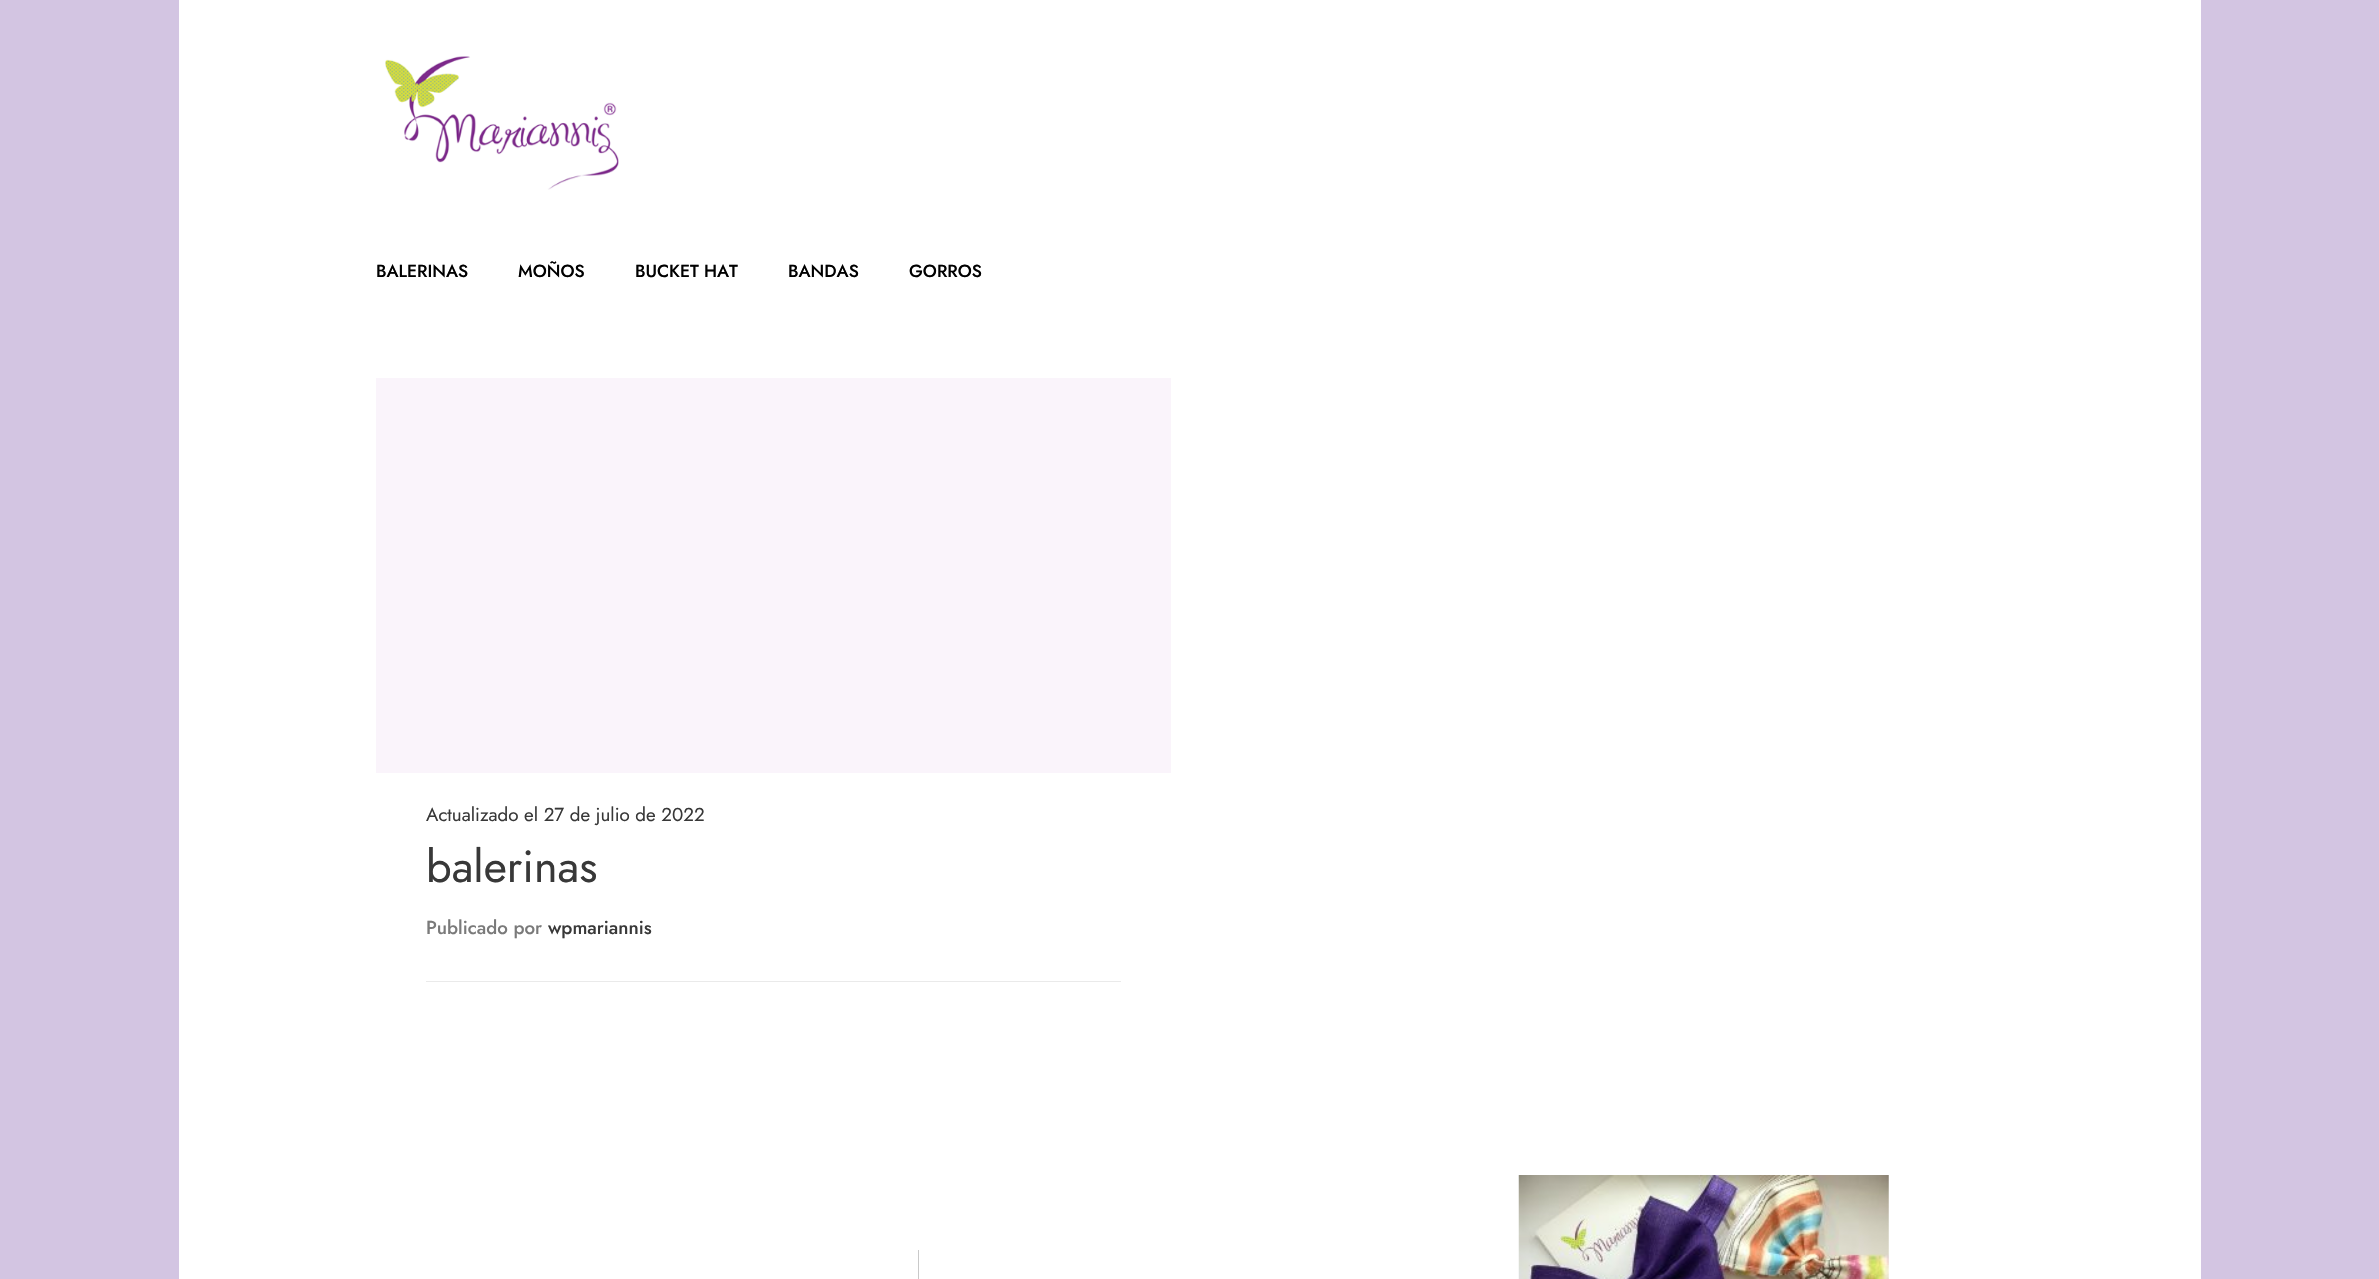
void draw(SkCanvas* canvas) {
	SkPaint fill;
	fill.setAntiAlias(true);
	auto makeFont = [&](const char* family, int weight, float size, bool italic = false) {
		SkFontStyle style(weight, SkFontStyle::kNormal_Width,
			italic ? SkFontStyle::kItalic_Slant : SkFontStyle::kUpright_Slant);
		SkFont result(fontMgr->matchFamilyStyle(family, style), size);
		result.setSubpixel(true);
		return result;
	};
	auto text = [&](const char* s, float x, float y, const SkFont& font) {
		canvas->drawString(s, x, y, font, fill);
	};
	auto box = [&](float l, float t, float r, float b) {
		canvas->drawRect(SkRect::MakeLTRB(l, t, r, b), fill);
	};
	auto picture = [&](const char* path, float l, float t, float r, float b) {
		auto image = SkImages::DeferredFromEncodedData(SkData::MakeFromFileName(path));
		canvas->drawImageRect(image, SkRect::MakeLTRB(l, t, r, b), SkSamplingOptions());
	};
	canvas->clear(0xFFD3C5E2);
	fill.setColor(0xFFFFFFFF);
	box(179, 0, 2201, 1279);
	picture("image0.png", 385, 56, 619, 190);
	fill.setColor(0xFFFAF4FB);
	box(376, 378, 1171, 773);
	fill.setColor(0xFFEAEAEA);
	box(426, 981, 1121, 982);
	fill.setColor(0xFFC9C9C9);
	box(918, 1250, 919, 1279);
	picture("image1.png", 1518, 1175, 1889, 1279);
	auto font1 = makeFont("Jost", 500, 17.5f);
	fill.setColor(0xFF000000);
	text("BALERINAS", 376, 277, font1);
	text("MOÑOS", 518, 277, font1);
	text("BUCKET HAT", 635, 277, font1);
	text("BANDAS", 788, 277, font1);
	text("GORROS", 909, 277, font1);
	auto font2 = makeFont("Jost", 400, 18.75f);
	fill.setColor(0xFF383838);
	text("Actualizado el 27 de julio de 2022", 426, 821, font2);
	auto font3 = makeFont("Jost", 400, 45);
	text("balerinas", 426, 882, font3);
	auto font4 = makeFont("Jost", 500, 18.75f);
	fill.setColor(0xFF7A7A7A);
	text("Publicado por", 426, 934, font4);
	fill.setColor(0xFF383838);
	text("wpmariannis", 548, 934, font4);
}
